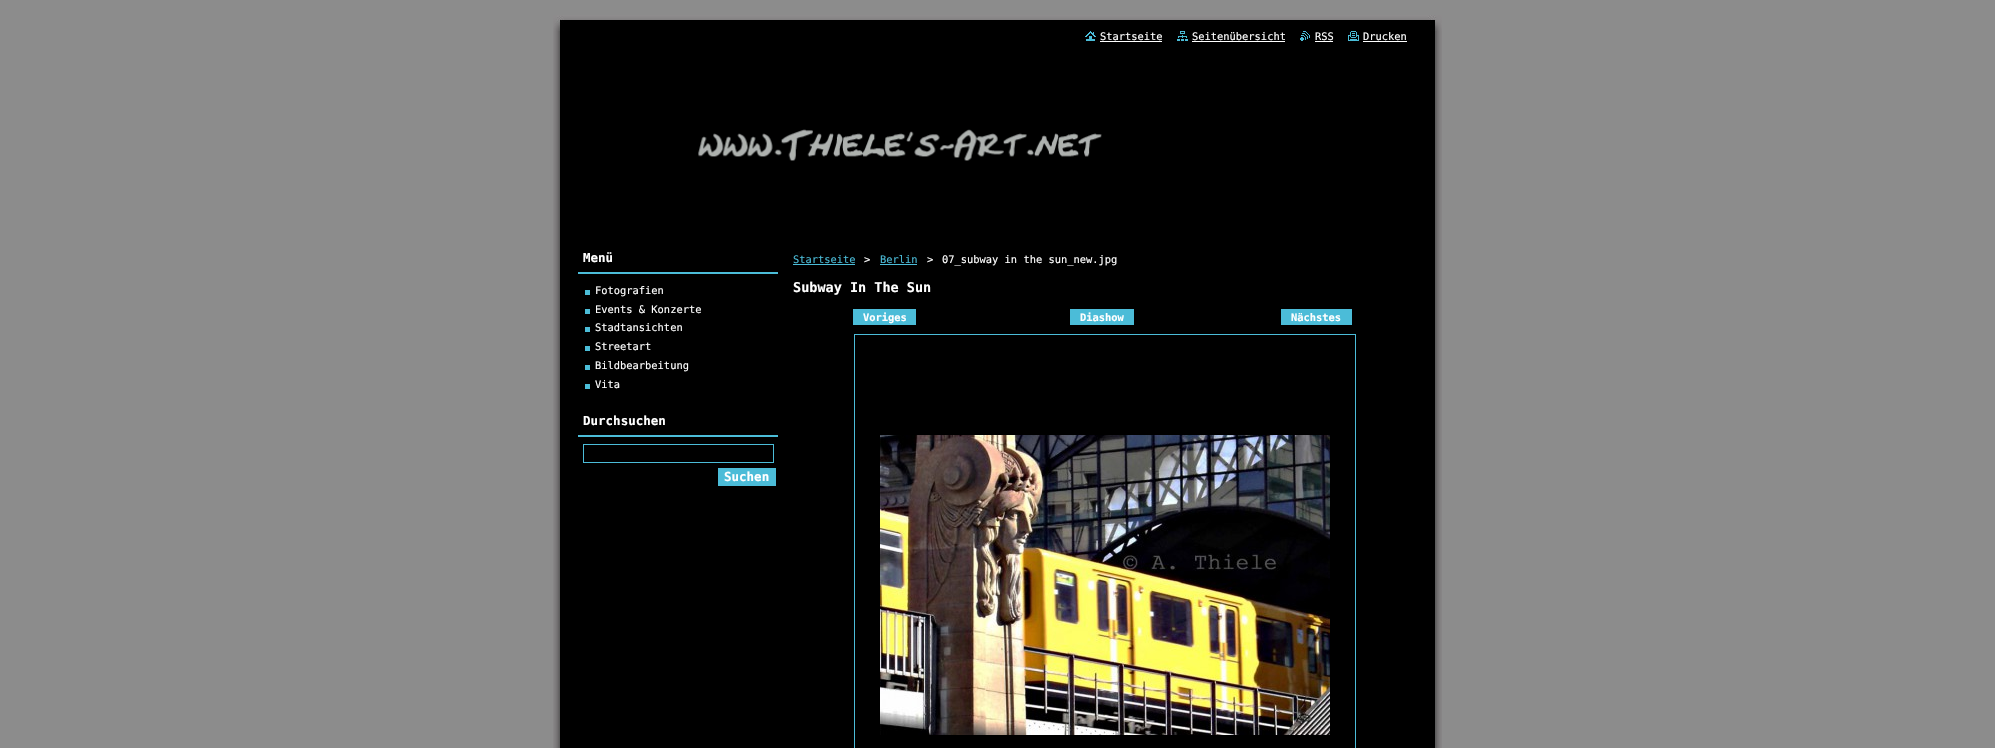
void draw(SkCanvas* canvas) {
	SkPaint fill;
	fill.setAntiAlias(true);
	auto makeFont = [&](const char* family, int weight, float size, bool italic = false) {
		SkFontStyle style(weight, SkFontStyle::kNormal_Width,
			italic ? SkFontStyle::kItalic_Slant : SkFontStyle::kUpright_Slant);
		SkFont result(fontMgr->matchFamilyStyle(family, style), size);
		result.setSubpixel(true);
		return result;
	};
	auto text = [&](const char* s, float x, float y, const SkFont& font) {
		canvas->drawString(s, x, y, font, fill);
	};
	auto box = [&](float l, float t, float r, float b) {
		canvas->drawRect(SkRect::MakeLTRB(l, t, r, b), fill);
	};
	auto picture = [&](const char* path, float l, float t, float r, float b) {
		auto image = SkImages::DeferredFromEncodedData(SkData::MakeFromFileName(path));
		canvas->drawImageRect(image, SkRect::MakeLTRB(l, t, r, b), SkSamplingOptions());
	};
	canvas->clear(0xFF8C8C8C);
	picture("image0.png", 553, 31, 1442, 733);
	picture("image1.png", 553, 15, 1442, 31);
	picture("image2.png", 553, 733, 1442, 748);
	picture("image3.png", 1085, 31, 1096, 41);
	fill.setColor(0xFFFFFFFF);
	box(1100, 41, 1162, 42);
	picture("image4.png", 1177, 31, 1188, 41);
	box(1192, 41, 1285, 42);
	picture("image5.png", 1300, 31, 1310, 41);
	box(1315, 41, 1333, 42);
	picture("image6.png", 1348, 31, 1359, 41);
	box(1363, 41, 1407, 42);
	picture("image7.png", 698, 129, 1102, 161);
	fill.setColor(0xFF4BBCD8);
	box(578, 272, 778, 274);
	fill.setColor(0xFF4BBDD8);
	box(585, 290, 590, 295);
	box(585, 309, 590, 314);
	box(585, 327, 590, 332);
	box(585, 346, 590, 351);
	box(585, 365, 590, 370);
	box(585, 384, 590, 389);
	fill.setColor(0xFF4BBCD8);
	box(578, 435, 778, 437);
	fill.setStyle(SkPaint::kStroke_Style);
	fill.setStrokeWidth(1);
	canvas->drawRect(SkRect::MakeLTRB(583.5f, 444.5f, 773.5f, 462.5f), fill);
	fill.setStyle(SkPaint::kFill_Style);
	box(718, 468, 776, 486);
	box(793, 264, 855, 265);
	box(880, 264, 917, 265);
	box(853, 309, 916, 325);
	box(1070, 309, 1134, 325);
	box(1281, 309, 1352, 325);
	fill.setStyle(SkPaint::kStroke_Style);
	canvas->drawRect(SkRect::MakeLTRB(854.5f, 334.5f, 1355.5f, 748.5f), fill);
	picture("image8.png", 880, 435, 1330, 735);
	auto font1 = makeFont("DejaVu Sans Mono", 400, 10.4f);
	fill.setStyle(SkPaint::kFill_Style);
	fill.setColor(0xFFFFFFFF);
	text("Startseite", 1100, 40, font1);
	text("Seitenübersicht", 1192, 40, font1);
	text("RSS", 1315, 40, font1);
	text("Drucken", 1363, 40, font1);
	auto font2 = makeFont("DejaVu Sans Mono", 700, 12.5f);
	text("Menü", 583, 262, font2);
	text("Fotografien", 595, 294, font1);
	text("Events & Konzerte", 595, 313, font1);
	text("Stadtansichten", 595, 331, font1);
	text("Streetart", 595, 350, font1);
	text("Bildbearbeitung", 595, 369, font1);
	text("Vita", 595, 388, font1);
	text("Durchsuchen", 583, 425, font2);
	text("Suchen", 724, 481, font2);
	fill.setColor(0xFF4BBCD8);
	text("Startseite", 793, 263, font1);
	fill.setColor(0xFFFFFFFF);
	text(">", 864, 263, font1);
	fill.setColor(0xFF4BBCD8);
	text("Berlin", 880, 263, font1);
	fill.setColor(0xFFFFFFFF);
	text(">", 927, 263, font1);
	text("07_subway in the sun_new.jpg", 942, 263, font1);
	auto font3 = makeFont("DejaVu Sans Mono", 700, 13.5f);
	text("Subway In The Sun", 793, 292, font3);
	auto font4 = makeFont("DejaVu Sans Mono", 700, 10.4f);
	text("Voriges", 863, 321, font4);
	text("Diashow", 1080, 321, font4);
	text("Nächstes", 1291, 321, font4);
}
